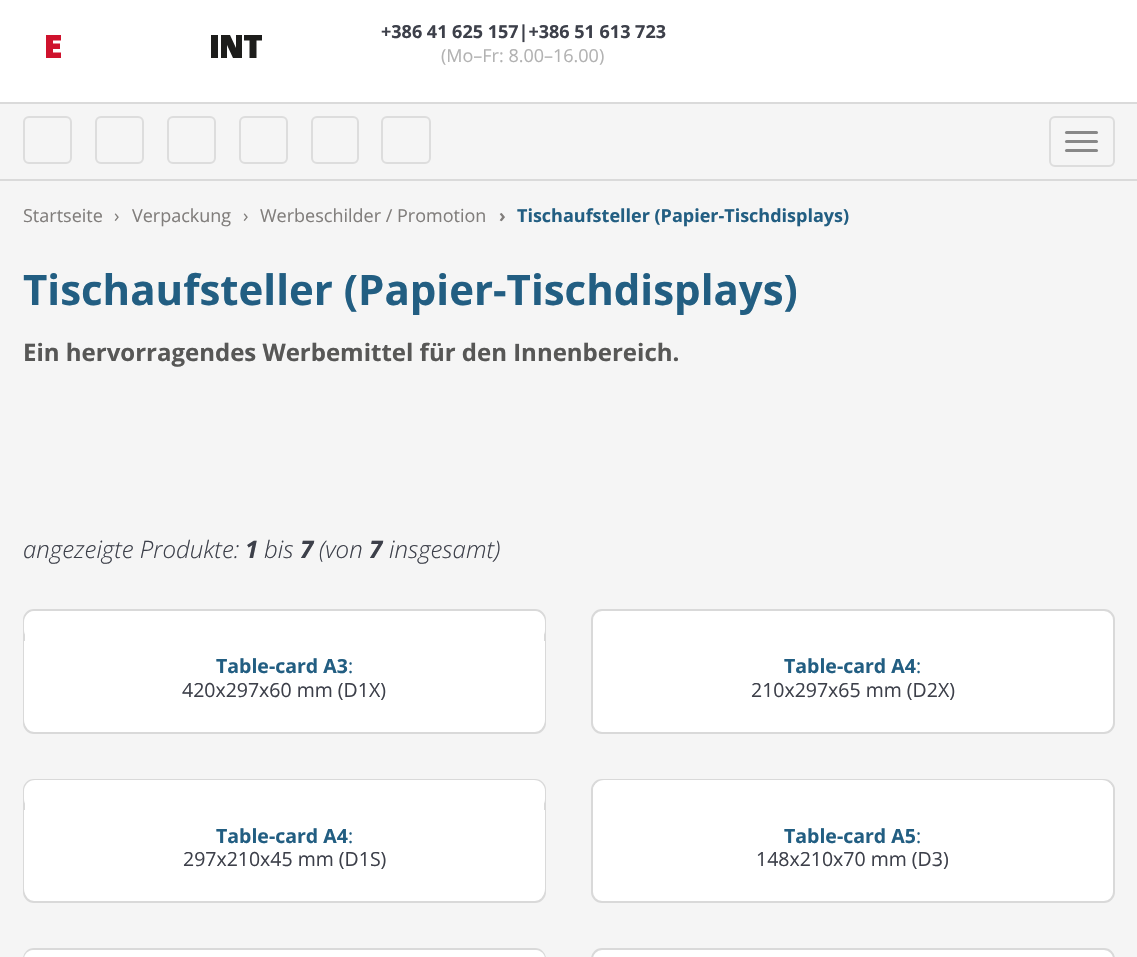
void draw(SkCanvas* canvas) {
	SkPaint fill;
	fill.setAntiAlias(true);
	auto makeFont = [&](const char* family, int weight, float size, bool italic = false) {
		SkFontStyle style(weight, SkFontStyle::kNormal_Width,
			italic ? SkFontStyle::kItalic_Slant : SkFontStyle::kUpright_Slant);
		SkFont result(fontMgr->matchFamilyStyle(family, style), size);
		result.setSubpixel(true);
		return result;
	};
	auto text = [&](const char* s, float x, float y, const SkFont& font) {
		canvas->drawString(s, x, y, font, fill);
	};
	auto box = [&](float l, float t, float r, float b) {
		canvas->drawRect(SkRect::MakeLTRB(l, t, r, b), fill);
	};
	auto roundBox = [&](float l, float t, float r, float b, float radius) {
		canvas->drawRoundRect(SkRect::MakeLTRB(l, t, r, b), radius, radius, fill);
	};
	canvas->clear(0xFFF5F5F5);
	fill.setColor(0xFFFFFFFF);
	box(0, 0, 1137, 102);
	fill.setColor(0xFFCF122D);
	canvas->drawPath(SkPathBuilder().moveTo(46, 35).lineTo(46, 58).lineTo(61, 58).lineTo(61, 52.5f).lineTo(53, 52.5f).lineTo(53, 49).lineTo(60, 49).lineTo(60, 43.5f).lineTo(53, 43.5f).lineTo(53, 40.5f).lineTo(61, 40.5f).lineTo(61, 35).close().detach(), fill);
	fill.setColor(0xFF1D1D1B);
	box(211, 35, 218, 58);
	canvas->drawPath(SkPathBuilder().moveTo(236, 35).lineTo(236, 48).lineTo(230, 35).lineTo(221, 35).lineTo(221, 58).lineTo(227, 58).lineTo(227, 45).lineTo(233, 58).lineTo(242, 58).lineTo(242, 35).close().moveTo(244, 35).lineTo(244, 40.5f).lineTo(249.5f, 40.5f).lineTo(249.5f, 58).lineTo(256.5f, 58).lineTo(256.5f, 40.5f).lineTo(262, 40.5f).lineTo(262, 35).close().detach(), fill);
	fill.setColor(0xFFDADADA);
	box(0, 102, 1137, 104);
	box(0, 179, 1137, 181);
	fill.setStyle(SkPaint::kStroke_Style);
	fill.setStrokeWidth(2);
	fill.setColor(0xFFDDDDDD);
	canvas->drawRoundRect(SkRect::MakeLTRB(24, 117, 71, 163), 5, 5, fill);
	canvas->drawRoundRect(SkRect::MakeLTRB(96, 117, 143, 163), 5, 5, fill);
	canvas->drawRoundRect(SkRect::MakeLTRB(168, 117, 215, 163), 5, 5, fill);
	canvas->drawRoundRect(SkRect::MakeLTRB(240, 117, 287, 163), 5, 5, fill);
	canvas->drawRoundRect(SkRect::MakeLTRB(312, 117, 358, 163), 5, 5, fill);
	canvas->drawRoundRect(SkRect::MakeLTRB(382, 117, 430, 163), 5, 5, fill);
	canvas->drawRoundRect(SkRect::MakeLTRB(1050, 117, 1114, 166), 5, 5, fill);
	fill.setStyle(SkPaint::kFill_Style);
	fill.setColor(0xFF888888);
	roundBox(1065, 131, 1098, 134, 1.5f);
	roundBox(1065, 140, 1098, 143, 1.5f);
	roundBox(1065, 149, 1098, 152, 1.5f);
	fill.setColor(0xFFFFFFFF);
	canvas->drawRoundRect(SkRect::MakeLTRB(24, 610, 545, 733), 10, 10, fill);
	fill.setStyle(SkPaint::kStroke_Style);
	fill.setColor(0xFFD9D9D9);
	canvas->drawRoundRect(SkRect::MakeLTRB(24, 610, 545, 733), 10, 10, fill);
	fill.setStyle(SkPaint::kFill_Style);
	fill.setColor(0xFFFFFFFF);
	roundBox(24, 611, 545, 641, 11);
	canvas->drawPath(SkPathBuilder().moveTo(24, 641).lineTo(545, 641).lineTo(545, 720).cubicTo(545, 726, 540, 731, 534, 731).lineTo(35, 731).cubicTo(29, 731, 24, 726, 24, 720).close().detach(), fill);
	canvas->drawRoundRect(SkRect::MakeLTRB(592, 610, 1114, 733), 10, 10, fill);
	fill.setStyle(SkPaint::kStroke_Style);
	fill.setColor(0xFFD9D9D9);
	canvas->drawRoundRect(SkRect::MakeLTRB(592, 610, 1114, 733), 10, 10, fill);
	fill.setStyle(SkPaint::kFill_Style);
	fill.setColor(0xFFFFFFFF);
	canvas->drawRoundRect(SkRect::MakeLTRB(24, 780, 545, 902), 10, 10, fill);
	fill.setStyle(SkPaint::kStroke_Style);
	fill.setColor(0xFFD9D9D9);
	canvas->drawRoundRect(SkRect::MakeLTRB(24, 780, 545, 902), 10, 10, fill);
	fill.setStyle(SkPaint::kFill_Style);
	fill.setColor(0xFFFFFFFF);
	roundBox(24, 780, 545, 810, 11);
	canvas->drawPath(SkPathBuilder().moveTo(24, 810).lineTo(545, 810).lineTo(545, 889).cubicTo(545, 895, 540, 900, 534, 900).lineTo(35, 900).cubicTo(29, 900, 24, 895, 24, 889).close().detach(), fill);
	canvas->drawRoundRect(SkRect::MakeLTRB(592, 780, 1114, 902), 10, 10, fill);
	fill.setStyle(SkPaint::kStroke_Style);
	fill.setColor(0xFFD9D9D9);
	canvas->drawRoundRect(SkRect::MakeLTRB(592, 780, 1114, 902), 10, 10, fill);
	fill.setStyle(SkPaint::kFill_Style);
	fill.setColor(0xFFFFFFFF);
	roundBox(593, 780, 1113, 810, 11);
	canvas->drawRoundRect(SkRect::MakeLTRB(24, 949, 545, 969), 10, 10, fill);
	fill.setStyle(SkPaint::kStroke_Style);
	fill.setColor(0xFFD9D9D9);
	canvas->drawRoundRect(SkRect::MakeLTRB(24, 949, 545, 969), 10, 10, fill);
	fill.setStyle(SkPaint::kFill_Style);
	fill.setColor(0xFFFFFFFF);
	roundBox(24, 950, 545, 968, 11);
	canvas->drawRoundRect(SkRect::MakeLTRB(592, 949, 1114, 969), 10, 10, fill);
	fill.setStyle(SkPaint::kStroke_Style);
	fill.setColor(0xFFD9D9D9);
	canvas->drawRoundRect(SkRect::MakeLTRB(592, 949, 1114, 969), 10, 10, fill);
	auto font1 = makeFont("Open Sans", 700, 18);
	fill.setStyle(SkPaint::kFill_Style);
	fill.setColor(0xFF3D404A);
	text("+386 41 625 157|+386 51 613 723", 381, 38, font1);
	auto font2 = makeFont("Open Sans", 400, 18);
	fill.setColor(0xFFB2B2B2);
	text("(Mo–Fr: 8.00–16.00)", 441, 62, font2);
	fill.setColor(0xFF817E7C);
	text("Startseite", 23, 222, font2);
	text("›", 114, 222, font2);
	text("Verpackung", 132, 222, font2);
	text("›", 243, 222, font2);
	text("Werbeschilder / Promotion", 260, 222, font2);
	text("›", 499, 222, font1);
	fill.setColor(0xFF225E82);
	text("Tischaufsteller (Papier-Tischdisplays)", 517, 222, font1);
	auto font3 = makeFont("Open Sans", 700, 42);
	text("Tischaufsteller (Papier-Tischdisplays)", 23, 305, font3);
	auto font4 = makeFont("Open Sans", 700, 24);
	fill.setColor(0xFF575756);
	text("Ein hervorragendes Werbemittel für den Innenbereich.", 23, 361, font4);
	auto font5 = makeFont("Open Sans", 300, 24, true);
	fill.setColor(0xFF3D404A);
	text("angezeigte Produkte:", 23, 558, font5);
	auto font6 = makeFont("Open Sans", 700, 24, true);
	text("1", 245, 558, font6);
	text("bis", 264, 558, font5);
	text("7", 300, 558, font6);
	text("(von", 319, 558, font5);
	text("7", 369, 558, font6);
	text("insgesamt)", 389, 558, font5);
	auto font7 = makeFont("Open Sans", 700, 19.5f);
	fill.setColor(0xFF225E82);
	text("Table-card A3", 216, 673, font7);
	auto font8 = makeFont("Open Sans", 400, 19.5f);
	text(":", 348, 673, font8);
	fill.setColor(0xFF3D404A);
	text("420x297x60 mm (D1X)", 182, 697, font8);
	fill.setColor(0xFF225E82);
	text("Table-card A4", 784, 673, font7);
	text(":", 916, 673, font8);
	fill.setColor(0xFF3D404A);
	text("210x297x65 mm (D2X)", 751, 697, font8);
	fill.setColor(0xFF225E82);
	text("Table-card A4", 216, 843, font7);
	text(":", 348, 843, font8);
	fill.setColor(0xFF3D404A);
	text("297x210x45 mm (D1S)", 183, 866, font8);
	fill.setColor(0xFF225E82);
	text("Table-card A5", 784, 843, font7);
	text(":", 916, 843, font8);
	fill.setColor(0xFF3D404A);
	text("148x210x70 mm (D3)", 756, 866, font8);
}
